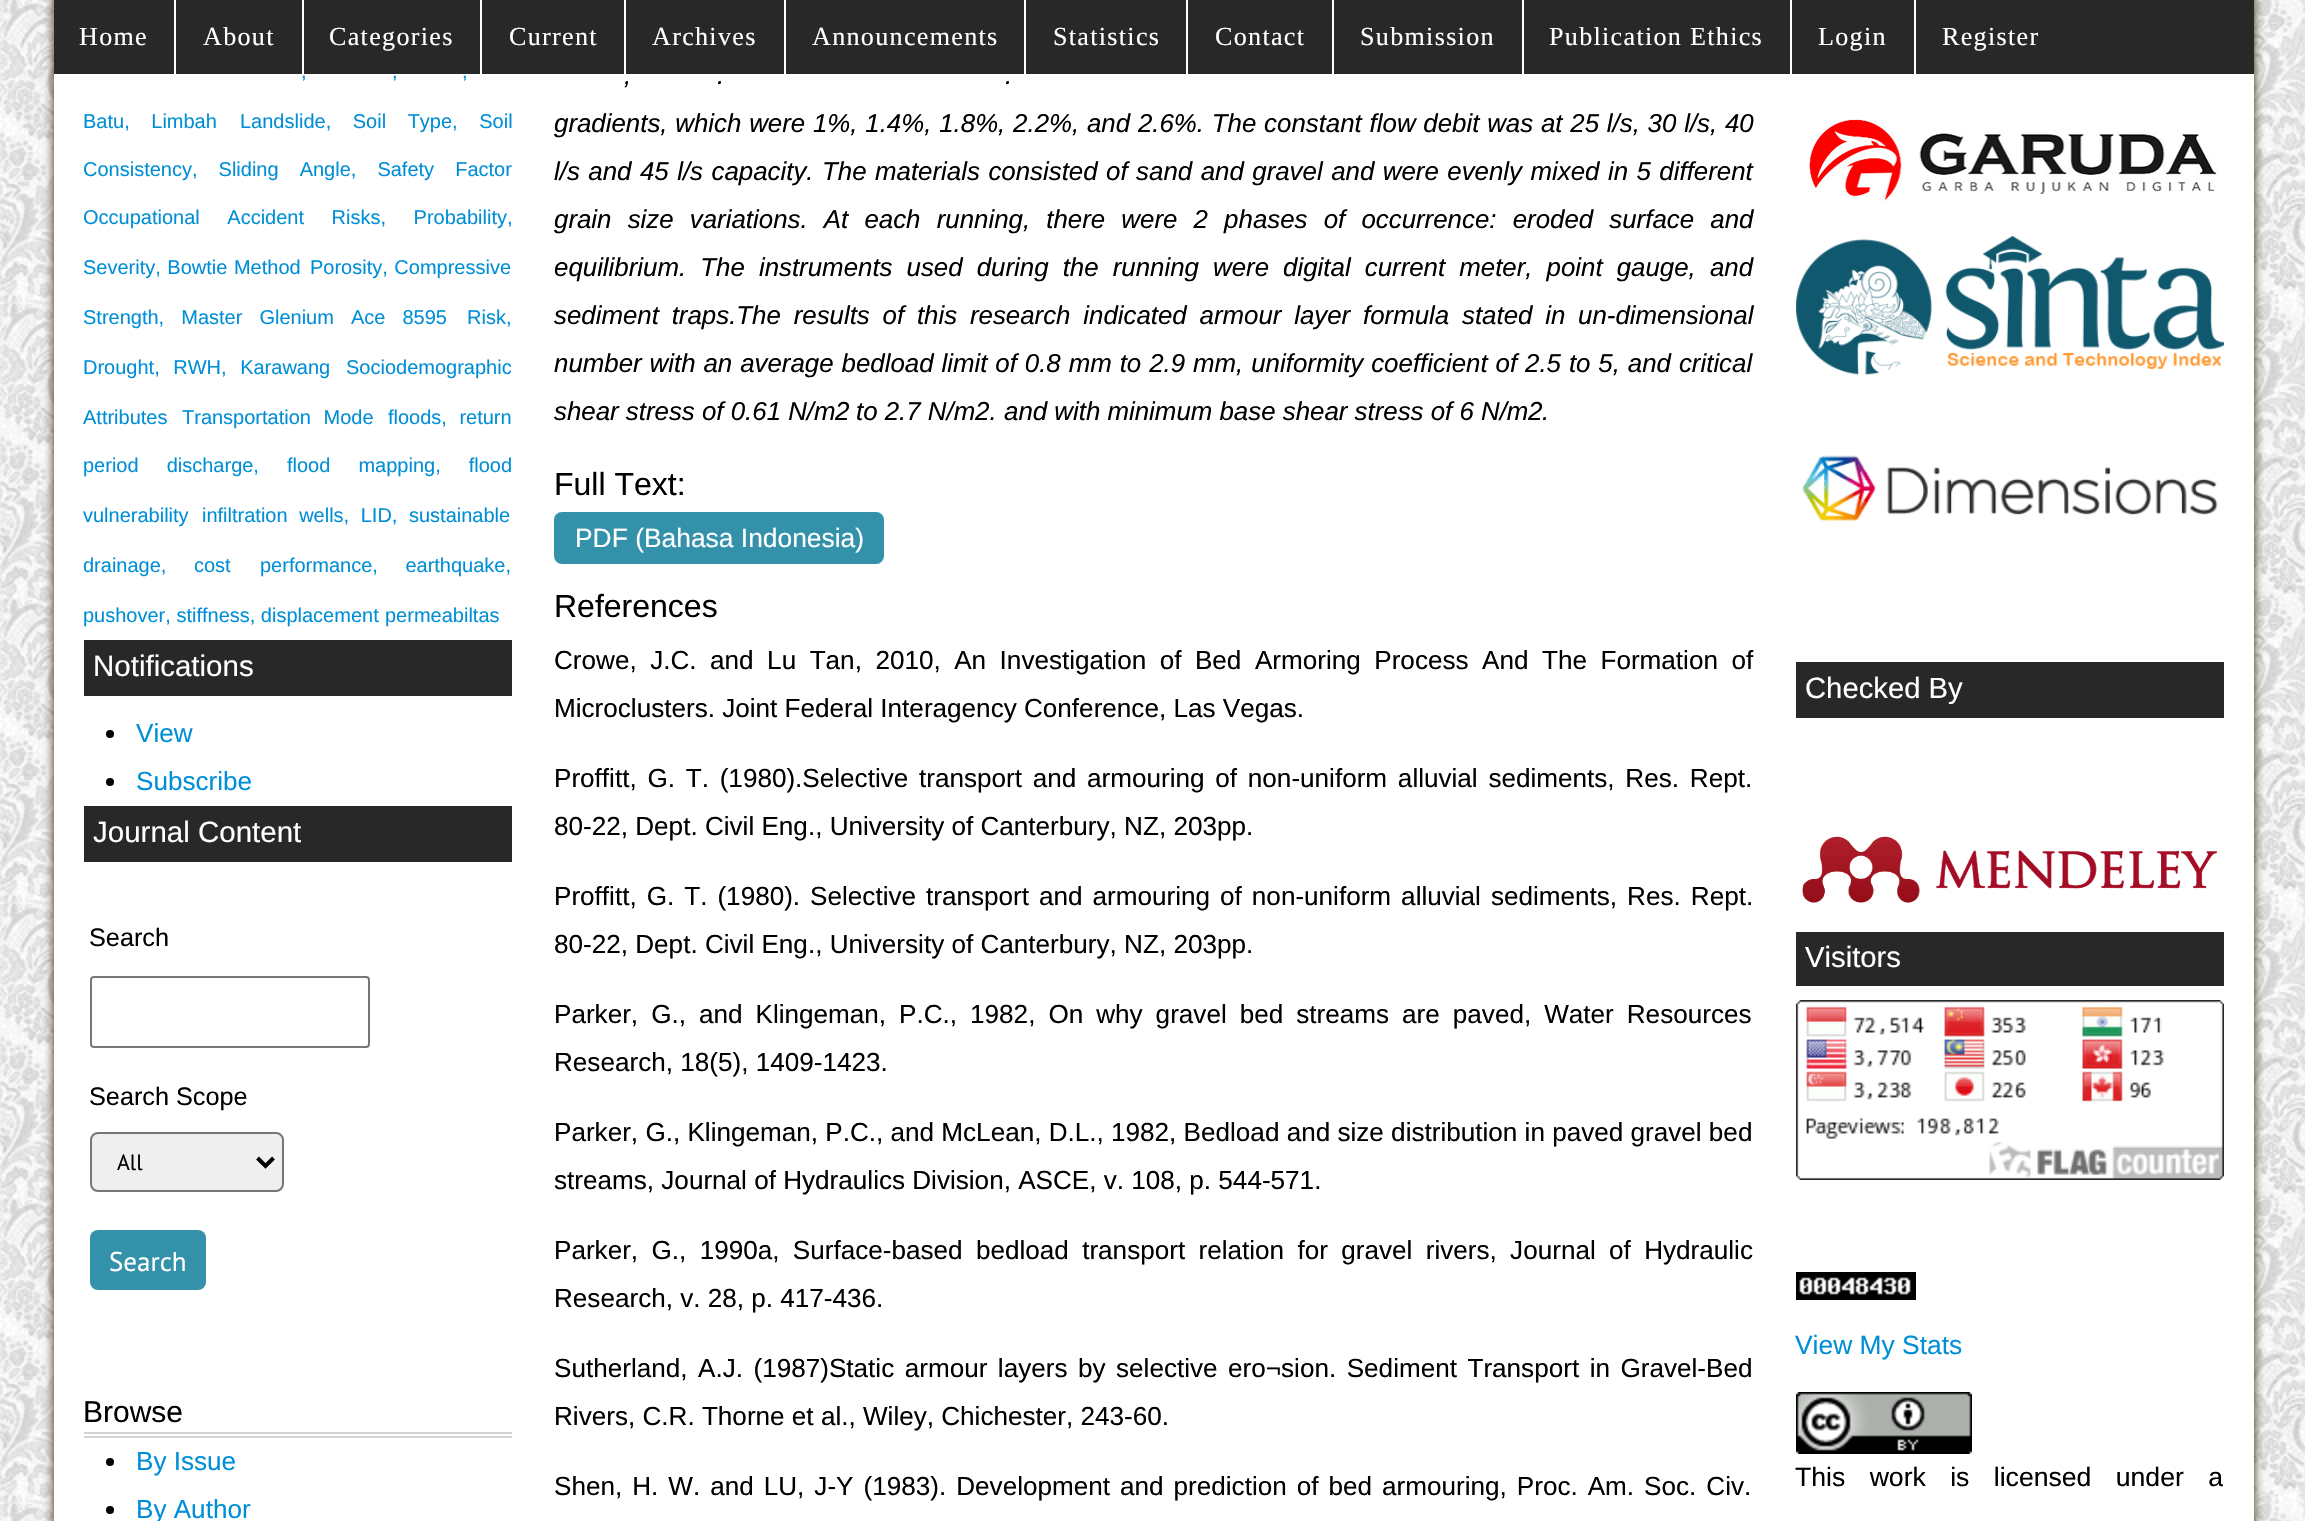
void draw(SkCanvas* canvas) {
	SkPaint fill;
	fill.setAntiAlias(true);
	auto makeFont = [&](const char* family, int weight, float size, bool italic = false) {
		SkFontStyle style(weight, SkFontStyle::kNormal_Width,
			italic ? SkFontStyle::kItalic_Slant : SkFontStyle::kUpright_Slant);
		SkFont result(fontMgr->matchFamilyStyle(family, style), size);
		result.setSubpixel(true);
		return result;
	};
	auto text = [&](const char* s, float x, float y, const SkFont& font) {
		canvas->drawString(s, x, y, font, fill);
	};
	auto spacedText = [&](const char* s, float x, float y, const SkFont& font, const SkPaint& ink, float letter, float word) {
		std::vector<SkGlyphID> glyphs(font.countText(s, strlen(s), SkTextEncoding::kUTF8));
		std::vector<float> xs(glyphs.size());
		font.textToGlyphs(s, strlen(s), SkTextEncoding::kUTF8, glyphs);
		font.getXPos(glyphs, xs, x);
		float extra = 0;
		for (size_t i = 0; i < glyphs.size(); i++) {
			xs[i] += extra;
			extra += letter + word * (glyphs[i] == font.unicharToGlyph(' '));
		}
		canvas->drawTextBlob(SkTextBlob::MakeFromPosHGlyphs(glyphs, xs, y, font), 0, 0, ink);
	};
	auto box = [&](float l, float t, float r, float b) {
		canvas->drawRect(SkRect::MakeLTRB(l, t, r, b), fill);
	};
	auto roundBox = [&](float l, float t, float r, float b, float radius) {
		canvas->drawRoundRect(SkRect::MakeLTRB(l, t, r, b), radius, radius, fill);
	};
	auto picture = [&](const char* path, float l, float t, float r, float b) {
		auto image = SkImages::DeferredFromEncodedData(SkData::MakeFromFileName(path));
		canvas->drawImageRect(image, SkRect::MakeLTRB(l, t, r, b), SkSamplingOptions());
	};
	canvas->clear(0xFFFFFFFF);
	picture("image0.png", 0, 0, 2305, 1521);
	fill.setColor(0xFF332200);
	fill.setMaskFilter(SkMaskFilter::MakeBlur(kNormal_SkBlurStyle, 5));
	canvas->drawRect(SkRect::MakeLTRB(54, -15, 2254, 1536), fill);
	fill.setMaskFilter(nullptr);
	fill.setColor(0xFFFFFFFF);
	box(54, 74, 2254, 1521);
	fill.setColor(0xFF282828);
	box(54, 0, 2254, 74);
	fill.setColor(0xFFFFFFFF);
	box(174, 0, 176, 74);
	box(302, 0, 304, 74);
	box(480, 0, 482, 74);
	box(624, 0, 626, 74);
	box(784, 0, 786, 74);
	box(1024, 0, 1026, 74);
	box(1186, 0, 1188, 74);
	box(1332, 0, 1334, 74);
	box(1522, 0, 1524, 74);
	box(1790, 0, 1792, 74);
	box(1914, 0, 1916, 74);
	fill.setColor(0xFF282828);
	box(84, 640, 512, 696);
	fill.setColor(0xFF000000);
	canvas->drawCircle(110, 734, 4, fill);
	canvas->drawCircle(110, 782, 4, fill);
	fill.setColor(0xFF282828);
	box(84, 806, 512, 862);
	fill.setStyle(SkPaint::kStroke_Style);
	fill.setStrokeWidth(2);
	fill.setColor(0xFF767676);
	canvas->drawRoundRect(SkRect::MakeLTRB(91, 977, 369, 1047), 3, 3, fill);
	fill.setStyle(SkPaint::kFill_Style);
	fill.setColor(0xFFEFEFEF);
	canvas->drawRoundRect(SkRect::MakeLTRB(91, 1133, 283, 1191), 7, 7, fill);
	fill.setStyle(SkPaint::kStroke_Style);
	fill.setColor(0xFF767676);
	canvas->drawRoundRect(SkRect::MakeLTRB(91, 1133, 283, 1191), 7, 7, fill);
	fill.setStrokeWidth(4);
	fill.setColor(0xFF000000);
	canvas->drawPath(SkPathBuilder().moveTo(257.5f, 1158).lineTo(265.5f, 1166).lineTo(273.5f, 1158).detach(), fill);
	fill.setStyle(SkPaint::kFill_Style);
	fill.setColor(0xFF3391AA);
	roundBox(90, 1230, 206, 1290, 8);
	fill.setColor(0xFFD1D3D5);
	box(84, 1432, 512, 1434);
	box(84, 1436, 512, 1438);
	fill.setColor(0xFF000000);
	canvas->drawCircle(110, 1462, 4, fill);
	canvas->drawCircle(110, 1510, 4, fill);
	fill.setColor(0xFF3391AA);
	roundBox(554, 512, 884, 564, 8);
	picture("image1.png", 1806, 119, 2218, 204);
	picture("image2.png", 1796, 236, 2224, 375);
	picture("image3.png", 1802, 455, 2218, 522);
	fill.setColor(0xFF282828);
	box(1796, 662, 2224, 718);
	picture("image4.png", 1802, 836, 2218, 903);
	box(1796, 932, 2224, 986);
	picture("image5.png", 1796, 1000, 2224, 1180);
	picture("image6.png", 1796, 1272, 1916, 1300);
	picture("image7.png", 1796, 1392, 1972, 1454);
	auto font1 = makeFont("Liberation Serif", 400, 26.1f);
	fill.setColor(0xFFFFFFFF);
	spacedText("Home", 79, 45, font1, fill, 1.3f, 0);
	spacedText("About", 203, 45, font1, fill, 1.3f, 0);
	spacedText("Categories", 329, 45, font1, fill, 1.3f, 0);
	spacedText("Current", 509, 45, font1, fill, 1.3f, 0);
	spacedText("Archives", 652, 45, font1, fill, 1.3f, 0);
	spacedText("Announcements", 812, 45, font1, fill, 1.3f, 0);
	spacedText("Statistics", 1053, 45, font1, fill, 1.3f, 0);
	spacedText("Contact", 1215, 45, font1, fill, 1.3f, 0);
	spacedText("Submission", 1360, 45, font1, fill, 1.3f, 0);
	spacedText("Publication Ethics", 1549, 45, font1, fill, 1.3f, 0);
	spacedText("Login", 1818, 45, font1, fill, 1.3f, 0);
	spacedText("Register", 1942, 45, font1, fill, 1.3f, 0);
	auto font2 = makeFont("Liberation Sans", 400, 20);
	fill.setColor(0xFF008FD7);
	spacedText(",", 301, 78, font2, fill, 0, 2);
	spacedText(",", 392, 78, font2, fill, 0, 2);
	spacedText(",", 462, 78, font2, fill, 0, 2);
	spacedText("Batu, Limbah", 83, 128, font2, fill, 0, 16);
	spacedText("Landslide, Soil Type, Soil", 240, 128, font2, fill, 0, 16);
	spacedText("Consistency, Sliding Angle, Safety Factor", 83, 176, font2, fill, 0, 15.5f);
	spacedText("Occupational Accident Risks, Probability,", 83, 224, font2, fill, 0, 22);
	spacedText("Severity, Bowtie Method", 83, 274, font2, fill, 0, 1);
	spacedText("Porosity, Compressive", 310, 274, font2, fill, 0, 1);
	spacedText("Strength, Master Glenium Ace 8595", 83, 324, font2, fill, 0, 11.5f);
	text("Risk,", 467, 324, font2);
	spacedText("Drought, RWH, Karawang", 83, 374, font2, fill, 0, 8);
	text("Sociodemographic", 346, 374, font2);
	text("Attributes", 83, 424, font2);
	spacedText("Transportation Mode", 182, 424, font2, fill, 0, 7);
	spacedText("floods, return", 388, 424, font2, fill, 0, 6.9f);
	spacedText("period discharge, flood mapping, flood", 83, 472, font2, fill, 0, 22.5f);
	text("vulnerability", 83, 522, font2);
	spacedText("infiltration wells, LID, sustainable", 202, 522, font2, fill, 0, 6);
	spacedText("drainage, cost", 83, 572, font2, fill, 0, 22);
	spacedText("performance, earthquake,", 260, 572, font2, fill, 0, 22);
	text("pushover, stiffness, displacement", 83, 622, font2);
	text("permeabiltas", 385, 622, font2);
	auto font3 = makeFont("Liberation Sans", 400, 29.5f);
	fill.setColor(0xFFFFFFFF);
	text("Notifications", 93, 676, font3);
	auto font4 = makeFont("Liberation Sans", 400, 26.1f);
	fill.setColor(0xFF008FD7);
	text("View", 136, 742, font4);
	text("Subscribe", 136, 790, font4);
	fill.setColor(0xFFFFFFFF);
	text("Journal Content", 93, 842, font3);
	auto font5 = makeFont("Liberation Sans", 400, 25.25f);
	fill.setColor(0xFF000000);
	text("Search", 89, 946, font5);
	text("Search Scope", 89, 1105, font5);
	auto font6 = makeFont("PT Sans", 400, 22);
	text("All", 117, 1170, font6);
	auto font7 = makeFont("PT Sans", 400, 27);
	fill.setColor(0xFFFFFFFF);
	text("Search", 109, 1271, font7);
	auto font8 = makeFont("Liberation Sans", 400, 30);
	fill.setColor(0xFF000000);
	text("Browse", 83, 1422, font8);
	fill.setColor(0xFF008FD7);
	text("By Issue", 136, 1470, font4);
	text("By Author", 136, 1518, font4);
	auto font9 = makeFont("Liberation Sans", 400, 25.85f, true);
	fill.setColor(0xFF000000);
	spacedText(",", 624, 84, font9, fill, 0, 7);
	spacedText(".", 717, 84, font9, fill, 0, 7);
	spacedText(".", 1005, 84, font9, fill, 0, 7);
	spacedText("gradients, which were 1%, 1.4%, 1.8%, 2.2%, and 2.6%. The constant flow debit was at 25 l/s, 30 l/s, 40", 554, 132, font9, fill, 0, 0.6f);
	spacedText("l/s and 45 l/s capacity. The materials consisted of sand and gravel and were evenly mixed in 5 different", 554, 180, font9, fill, 0, 1.3f);
	spacedText("grain size variations. At each running, there were 2 phases of occurrence: eroded surface and", 554, 228, font9, fill, 0, 9);
	spacedText("equilibrium. The instruments used during the running were digital current meter, point gauge, and", 554, 276, font9, fill, 0, 6.9f);
	spacedText("sediment traps.The results of this research indicated armour layer formula stated in un-dimensional", 554, 324, font9, fill, 0, 5.6f);
	spacedText("number with an average bedload limit of 0.8 mm to 2.9 mm, uniformity coefficient of 2.5 to 5, and critical", 554, 372, font9, fill, 0, 0.75f);
	text("shear stress of 0.61 N/m", 554, 420, font9);
	auto font10 = makeFont("Liberation Sans", 400, 26, true);
	text("2", 835, 420, font10);
	text("to 2.7 N/m", 856, 420, font9);
	text("2.", 975, 420, font10);
	text("and with minimum base shear stress of 6 N/m", 1004, 420, font9);
	text("2", 1528, 420, font10);
	text(".", 1542, 420, font9);
	auto font11 = makeFont("Liberation Sans", 400, 32);
	text("Full Text:", 554, 495, font11);
	auto font12 = makeFont("Liberation Sans", 400, 26.4f);
	fill.setColor(0xFFFFFFFF);
	text("PDF (Bahasa Indonesia)", 575, 547, font12);
	fill.setColor(0xFF000000);
	text("References", 554, 617, font11);
	spacedText("Crowe, J.C. and Lu Tan, 2010, An Investigation of Bed Armoring Process And The Formation of", 554, 669, font4, fill, 0, 6.25f);
	text("Microclusters. Joint Federal Interagency Conference, Las Vegas.", 554, 717, font4);
	spacedText("Proffitt, G. T. (1980).Selective transport and armouring of non-uniform alluvial sediments, Res. Rept.", 554, 787, font4, fill, 0, 3.5f);
	text("80-22, Dept. Civil Eng., University of Canterbury, NZ, 203pp.", 554, 835, font4);
	spacedText("Proffitt, G. T. (1980). Selective transport and armouring of non-uniform alluvial sediments, Res. Rept.", 554, 905, font4, fill, 0, 2.75f);
	text("80-22, Dept. Civil Eng., University of Canterbury, NZ, 203pp.", 554, 953, font4);
	spacedText("Parker, G., and Klingeman, P.C., 1982, On why gravel bed streams are paved, Water Resources", 554, 1023, font4, fill, 0, 5.75f);
	text("Research, 18(5), 1409-1423.", 554, 1071, font4);
	text("Parker, G., Klingeman, P.C., and McLean, D.L., 1982, Bedload and size distribution in paved gravel bed", 554, 1141, font4);
	text("streams, Journal of Hydraulics Division, ASCE, v. 108, p. 544-571.", 554, 1189, font4);
	spacedText("Parker, G., 1990a, Surface-based bedload transport relation for gravel rivers, Journal of Hydraulic", 554, 1259, font4, fill, 0, 6.1f);
	text("Research, v. 28, p. 417-436.", 554, 1307, font4);
	spacedText("Sutherland, A.J. (1987)Static armour layers by selective ero¬sion. Sediment Transport in Gravel-Bed", 554, 1377, font4, fill, 0, 3.25f);
	text("Rivers, C.R. Thorne et al., Wiley, Chichester, 243-60.", 554, 1425, font4);
	spacedText("Shen, H. W. and LU, J-Y (1983). Development and prediction of bed armouring, Proc. Am. Soc. Civ.", 554, 1495, font4, fill, 0, 2.75f);
	auto font13 = makeFont("Liberation Sans", 400, 29.25f);
	fill.setColor(0xFFFFFFFF);
	text("Checked By", 1805, 698, font13);
	text("Visitors", 1805, 967, font13);
	fill.setColor(0xFF008FD7);
	text("View My Stats", 1795, 1354, font12);
	auto font14 = makeFont("Liberation Sans", 400, 26.6f);
	fill.setColor(0xFF000000);
	spacedText("This work is licensed under a", 1795, 1486, font14, fill, 0, 17);
}
